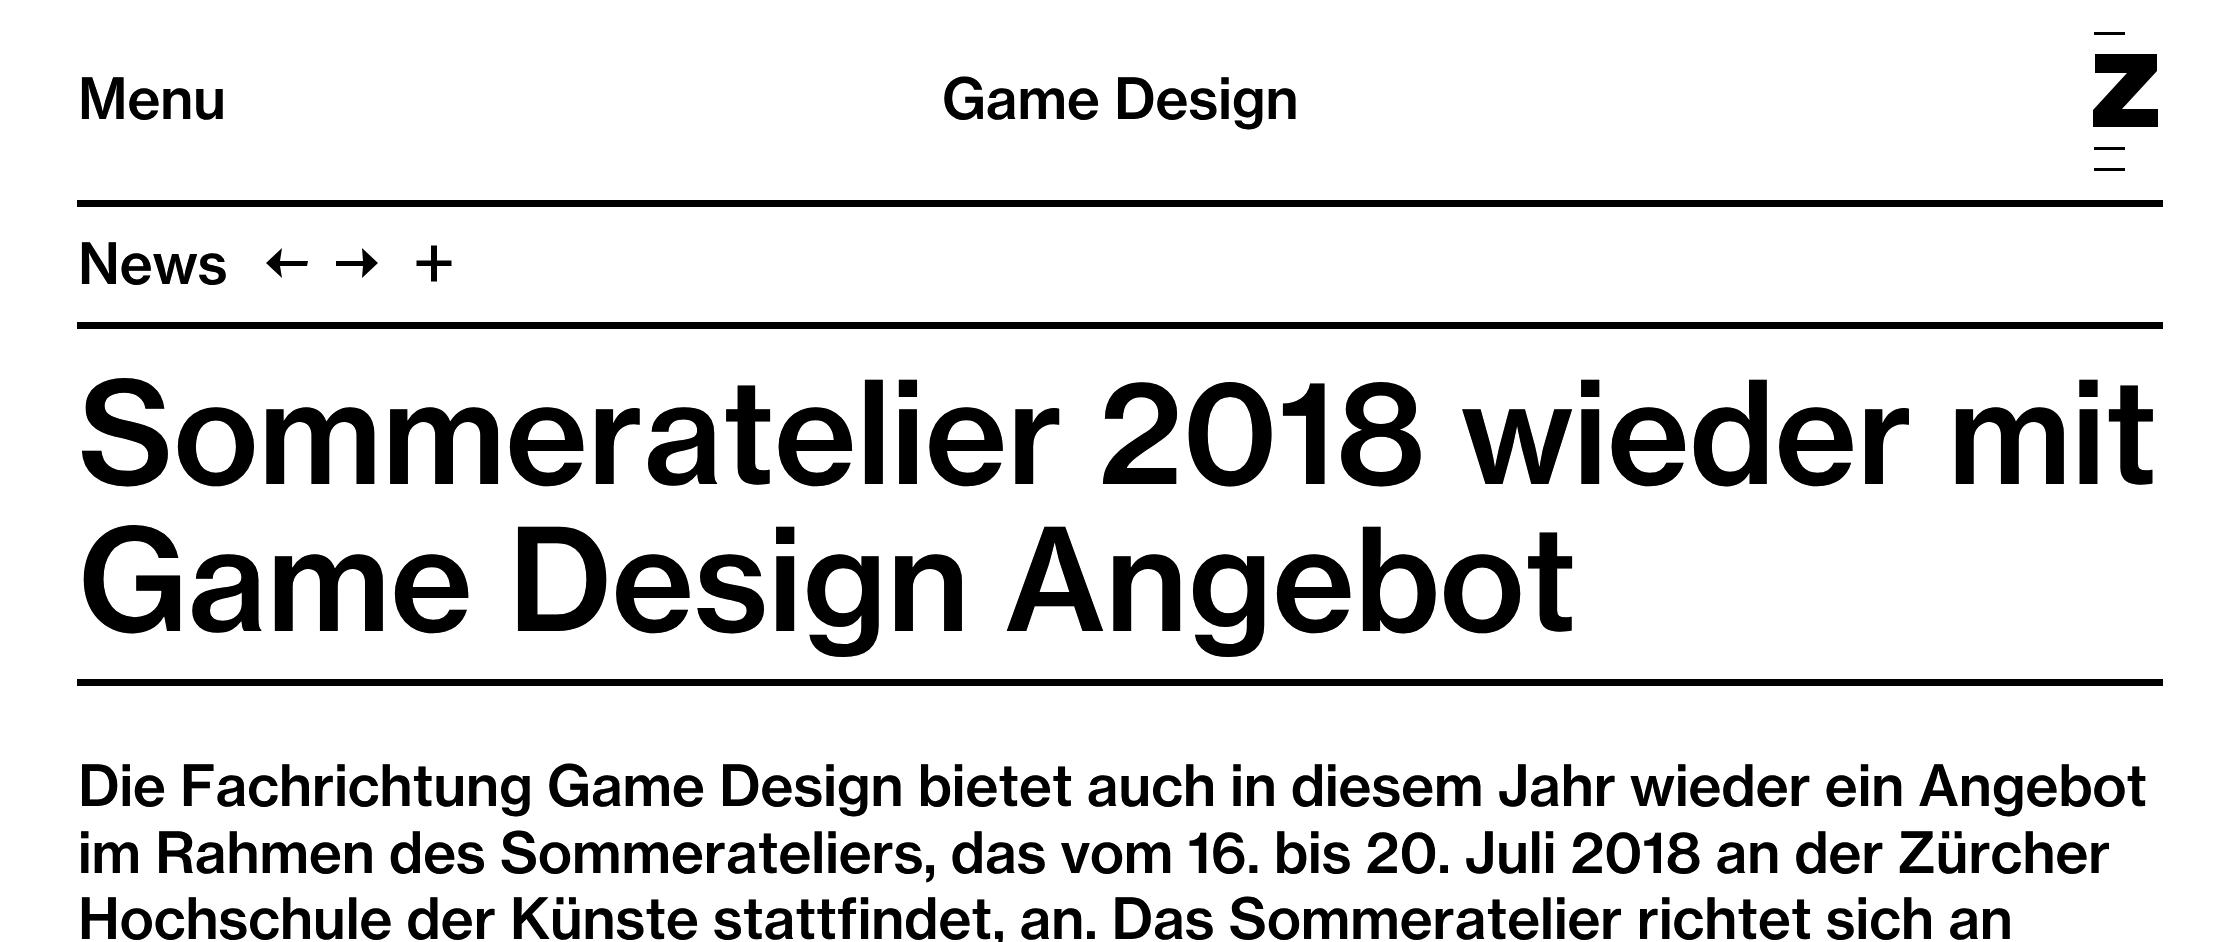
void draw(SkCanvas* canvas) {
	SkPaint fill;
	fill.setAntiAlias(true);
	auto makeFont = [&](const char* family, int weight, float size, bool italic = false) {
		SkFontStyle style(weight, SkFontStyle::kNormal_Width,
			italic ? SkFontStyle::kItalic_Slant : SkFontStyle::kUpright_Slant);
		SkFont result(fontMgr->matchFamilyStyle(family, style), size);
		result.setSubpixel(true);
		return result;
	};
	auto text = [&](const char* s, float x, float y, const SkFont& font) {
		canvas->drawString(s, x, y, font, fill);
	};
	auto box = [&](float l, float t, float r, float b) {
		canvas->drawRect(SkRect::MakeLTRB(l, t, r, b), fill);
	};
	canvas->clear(0xFFFFFFFF);
	fill.setColor(0xFF000000);
	box(77, 200, 2163, 207);
	canvas->drawPath(SkPathBuilder().moveTo(2125, 171).lineTo(2094, 171).lineTo(2094, 168).lineTo(2125, 168).close().moveTo(2125, 150).lineTo(2094, 150).lineTo(2094, 147).lineTo(2125, 147).close().moveTo(2125, 35).lineTo(2094, 35).lineTo(2094, 32).lineTo(2125, 32).close().detach(), fill);
	canvas->drawPath(SkPathBuilder().moveTo(2093, 127).lineTo(2158, 127).lineTo(2158, 109).lineTo(2122, 109).lineTo(2157, 71).lineTo(2157, 54).lineTo(2095, 54).lineTo(2095, 73).lineTo(2127, 73).lineTo(2093, 110).close().detach(), fill);
	box(77, 322, 2163, 329);
	canvas->drawPath(SkPathBuilder().moveTo(282, 278).lineTo(280, 266).lineTo(307, 266).lineTo(308, 261).lineTo(280, 261).lineTo(282, 248).lineTo(266, 263).close().detach(), fill);
	canvas->drawPath(SkPathBuilder().moveTo(362, 278).lineTo(378, 263).lineTo(362, 248).lineTo(363, 261).lineTo(336, 261).lineTo(336, 266).lineTo(363, 266).close().detach(), fill);
	canvas->drawPath(SkPathBuilder().moveTo(416.5f, 266).lineTo(416.5f, 260.5f).lineTo(431, 260.5f).lineTo(431, 245.5f).lineTo(437, 245.5f).lineTo(437, 260.5f).lineTo(451.5f, 260.5f).lineTo(451.5f, 266).lineTo(437, 266).lineTo(437, 281.5f).lineTo(431, 281.5f).lineTo(431, 266).close().detach(), fill);
	box(77, 679, 2163, 686);
	auto font1 = makeFont("Neue Haas Grotesk", 500, 56);
	text("Menu", 78, 119, font1);
	text("Game Design", 942, 119, font1);
	text("News", 78, 284, font1);
	auto font2 = makeFont("Neue Haas Grotesk", 500, 140);
	text("Sommeratelier 2018 wieder mit", 78, 484, font2);
	text("Game Design Angebot", 78, 631, font2);
	text("Die Fachrichtung Game Design bietet auch in diesem Jahr wieder ein Angebot", 78, 806, font1);
	text("im Rahmen des Sommerateliers, das vom 16. bis 20. Juli 2018 an der Zürcher", 78, 873, font1);
	text("Hochschule der Künste stattfindet, an. Das Sommeratelier richtet sich an", 78, 939, font1);
}
